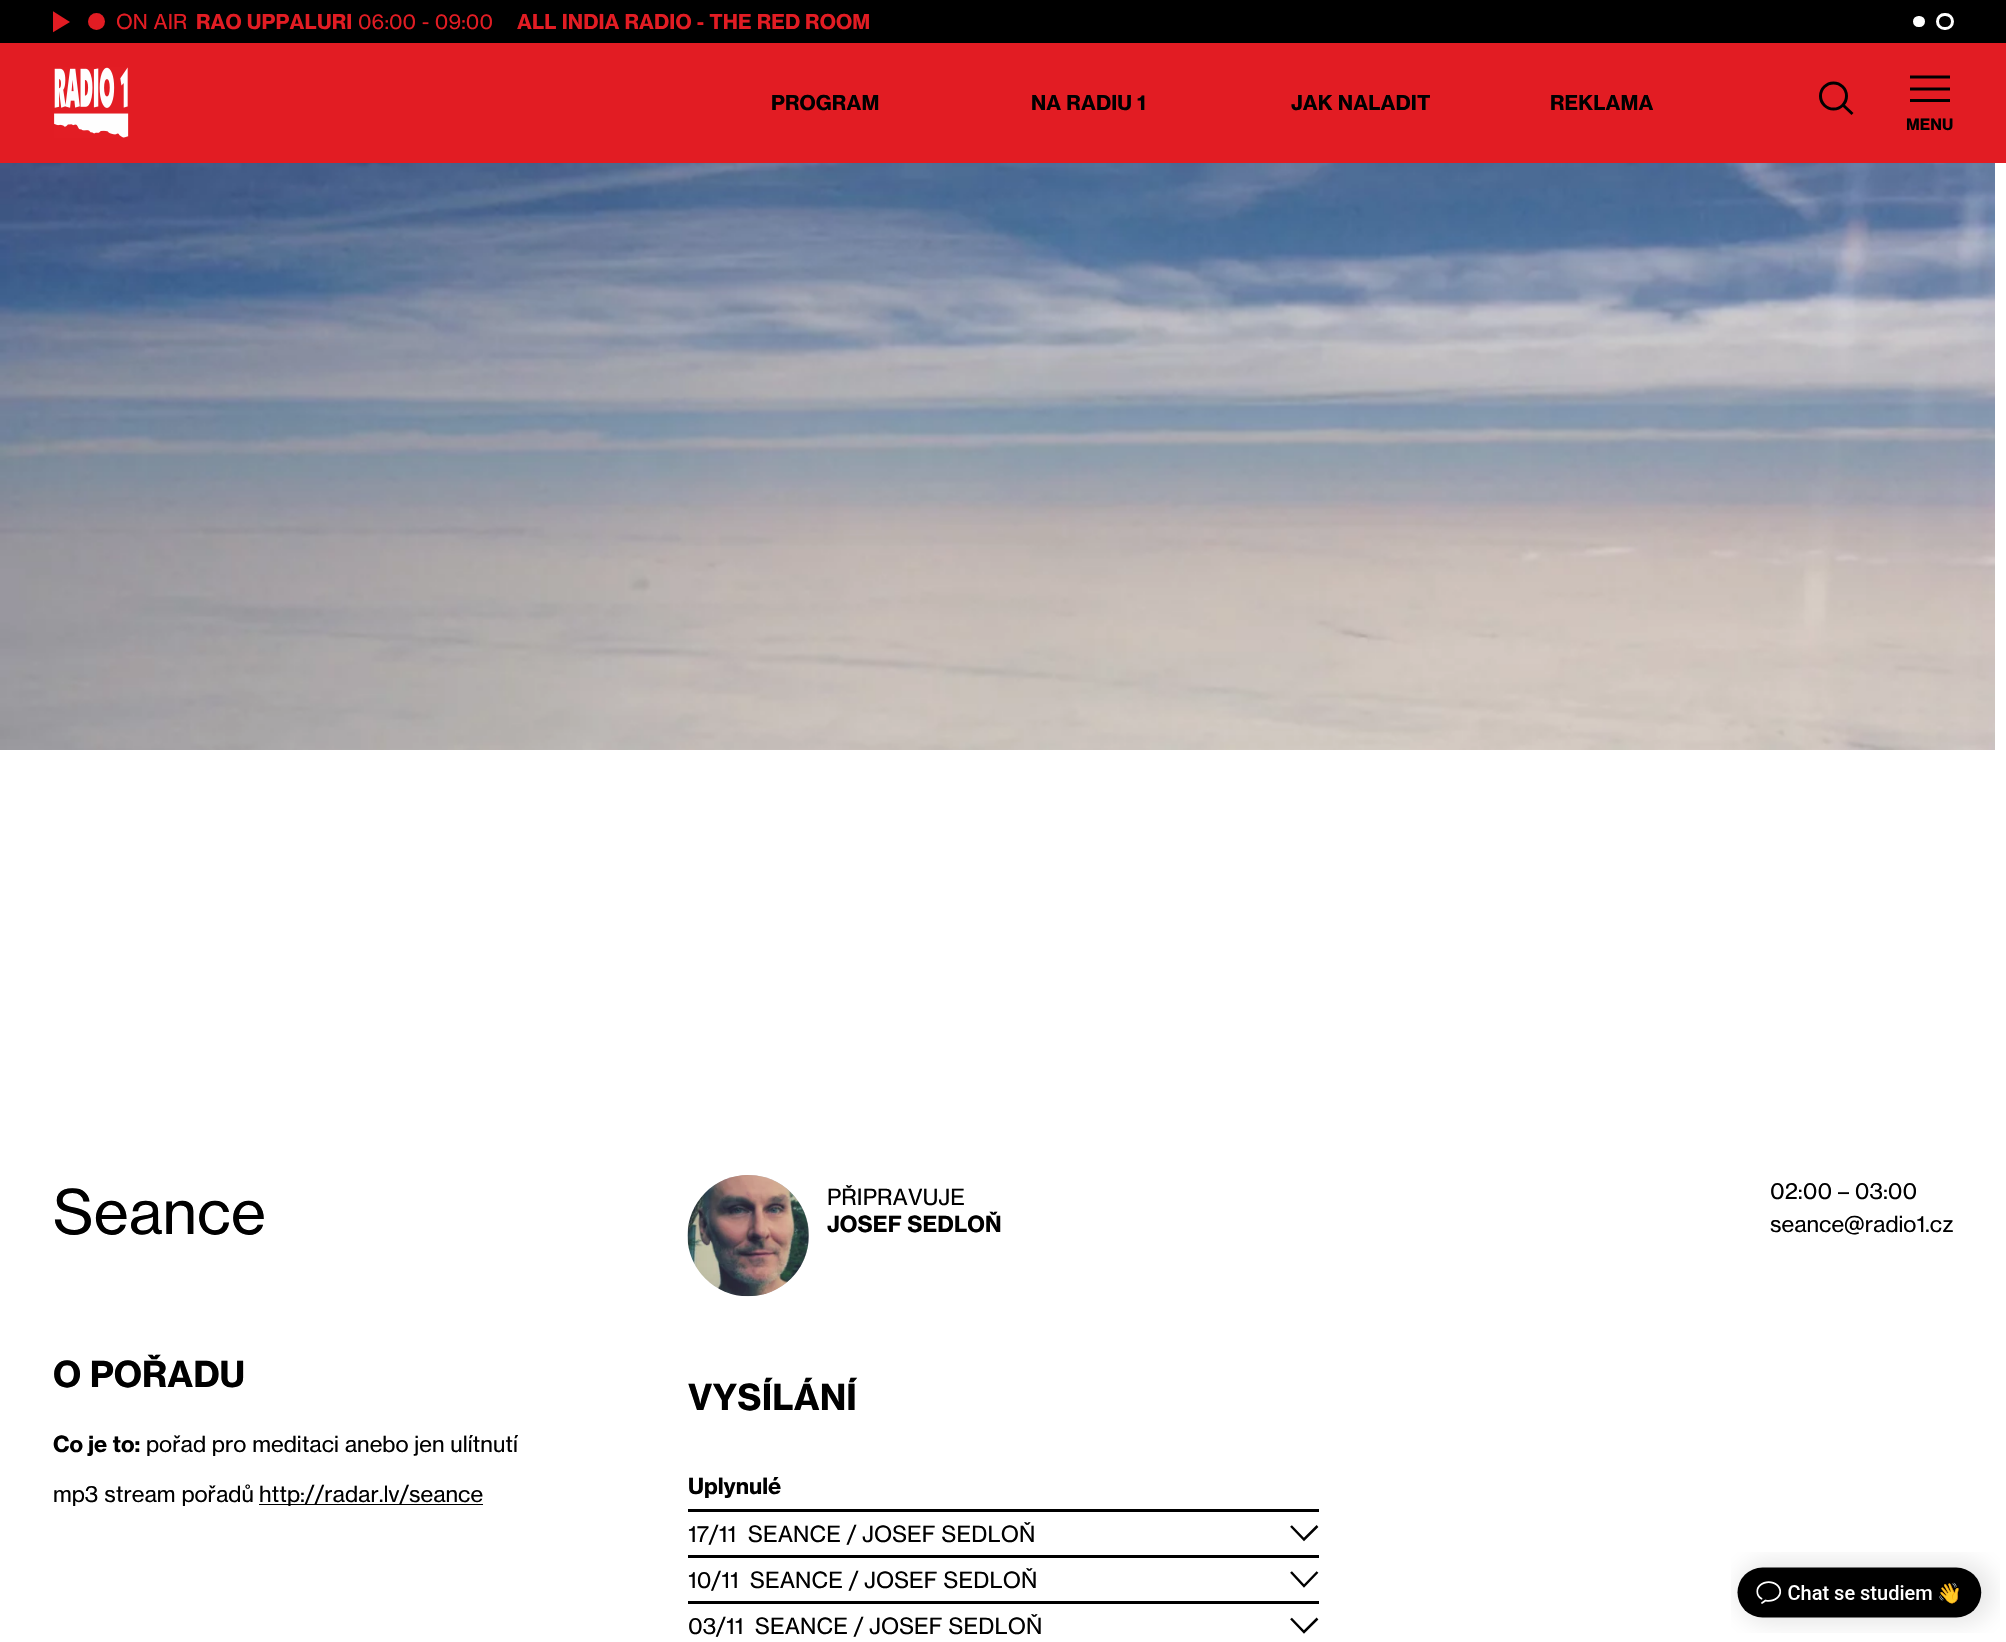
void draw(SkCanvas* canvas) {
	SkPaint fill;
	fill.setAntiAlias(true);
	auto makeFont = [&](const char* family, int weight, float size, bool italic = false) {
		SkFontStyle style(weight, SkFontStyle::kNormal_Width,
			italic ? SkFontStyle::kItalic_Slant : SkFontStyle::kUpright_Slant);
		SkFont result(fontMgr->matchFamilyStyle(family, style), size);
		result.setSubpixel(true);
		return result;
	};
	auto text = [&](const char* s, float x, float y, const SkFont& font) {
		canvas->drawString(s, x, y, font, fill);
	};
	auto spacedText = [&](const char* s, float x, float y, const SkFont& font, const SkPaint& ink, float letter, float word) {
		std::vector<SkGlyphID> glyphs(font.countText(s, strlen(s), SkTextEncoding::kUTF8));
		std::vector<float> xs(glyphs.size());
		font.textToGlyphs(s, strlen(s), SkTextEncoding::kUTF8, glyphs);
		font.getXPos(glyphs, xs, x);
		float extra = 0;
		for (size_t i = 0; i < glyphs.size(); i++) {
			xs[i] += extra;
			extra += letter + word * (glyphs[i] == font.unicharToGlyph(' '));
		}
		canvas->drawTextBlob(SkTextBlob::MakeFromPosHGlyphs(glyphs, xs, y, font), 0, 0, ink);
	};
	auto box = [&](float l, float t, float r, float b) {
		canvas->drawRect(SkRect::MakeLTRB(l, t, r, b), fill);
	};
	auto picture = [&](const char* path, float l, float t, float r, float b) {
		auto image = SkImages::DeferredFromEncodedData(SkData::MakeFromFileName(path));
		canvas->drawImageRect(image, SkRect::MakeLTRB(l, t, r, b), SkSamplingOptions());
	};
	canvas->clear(0xFFFFFFFF);
	fill.setColor(0xFF000000);
	box(0, 0, 2006, 43);
	canvas->save();
	canvas->clipRect(SkRect::MakeLTRB(53, 11, 70, 33));
	fill.setColor(0xFFE21C23);
	canvas->drawPath(SkPathBuilder().moveTo(70, 22).lineTo(52.5f, 32.5f).lineTo(52.5f, 11).close().detach(), fill);
	canvas->restore();
	canvas->drawCircle(96.5f, 21.5f, 8.5f, fill);
	fill.setColor(0xFFFFFFFF);
	canvas->drawRoundRect(SkRect::MakeLTRB(1911.5f, 14.5f, 1926.5f, 28.5f), 7, 7, fill);
	fill.setStyle(SkPaint::kStroke_Style);
	fill.setStrokeWidth(3);
	fill.setColor(0xFF000000);
	canvas->drawRoundRect(SkRect::MakeLTRB(1911.5f, 14.5f, 1926.5f, 28.5f), 7, 7, fill);
	fill.setColor(0xFFFFFFFF);
	canvas->drawRoundRect(SkRect::MakeLTRB(1937.5f, 14.5f, 1952.5f, 28.5f), 7, 7, fill);
	fill.setStyle(SkPaint::kFill_Style);
	fill.setColor(0xFFE21C23);
	box(0, 43, 2006, 163);
	picture("image0.png", 54, 67, 129, 138);
	fill.setStyle(SkPaint::kStroke_Style);
	fill.setColor(0xFF000000);
	canvas->drawCircle(1833.5f, 96, 13, fill);
	canvas->drawPath(SkPathBuilder().moveTo(1843.5f, 105.5f).lineTo(1852.5f, 114).detach(), fill);
	fill.setStrokeWidth(3.2f);
	canvas->drawPath(SkPathBuilder().moveTo(1910, 77).lineTo(1950, 77).moveTo(1910, 89).lineTo(1950, 89).detach(), fill);
	fill.setStyle(SkPaint::kFill_Style);
	box(1910, 99, 1950, 102);
	picture("image1.png", 0, 163, 1995, 750);
	fill.setColor(0xFFC0BCC1);
	canvas->drawCircle(748.5f, 1235.5f, 60.5f, fill);
	picture("image2.png", 687, 1175, 809, 1297);
	fill.setColor(0xFF000000);
	box(259, 1504, 483, 1505);
	box(688, 1509, 1319, 1512);
	box(688, 1555, 1319, 1558);
	fill.setStyle(SkPaint::kStroke_Style);
	fill.setStrokeWidth(2.5f);
	canvas->drawPath(SkPathBuilder().moveTo(1291, 1526).lineTo(1304, 1539.5f).lineTo(1317.5f, 1526).detach(), fill);
	fill.setStyle(SkPaint::kFill_Style);
	box(688, 1601, 1319, 1604);
	fill.setStyle(SkPaint::kStroke_Style);
	canvas->drawPath(SkPathBuilder().moveTo(1291, 1572).lineTo(1304, 1586).lineTo(1317.5f, 1572).detach(), fill);
	canvas->drawPath(SkPathBuilder().moveTo(1291, 1618.5f).lineTo(1304, 1632).lineTo(1317.5f, 1618.5f).detach(), fill);
	picture("image3.png", 1731, 1552, 2000, 1633);
	auto font1 = makeFont("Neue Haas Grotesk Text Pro", 400, 20.25f);
	fill.setStyle(SkPaint::kFill_Style);
	fill.setColor(0xFFE21C23);
	spacedText("ON AIR", 116, 29, font1, fill, 0.1f, 0);
	auto font2 = makeFont("Neue Haas Grotesk Text Pro", 700, 20.25f);
	spacedText("RAO UPPALURI", 196, 29, font2, fill, 0.1f, 0);
	spacedText("06:00 - 09:00", 358, 29, font1, fill, 0.1f, 0);
	spacedText("ALL INDIA RADIO - THE RED ROOM", 517, 29, font2, fill, 0.1f, 0);
	fill.setColor(0xFF000000);
	spacedText("PROGRAM", 771, 110, font2, fill, 0.1f, 0);
	spacedText("NA RADIU 1", 1031, 110, font2, fill, 0.1f, 0);
	spacedText("JAK NALADIT", 1291, 110, font2, fill, 0.1f, 0);
	spacedText("REKLAMA", 1550, 110, font2, fill, 0.1f, 0);
	auto font3 = makeFont("Neue Haas Grotesk Text Pro", 700, 15.5f);
	spacedText("MENU", 1906, 130, font3, fill, 0.1f, 0);
	auto font4 = makeFont("Neue Haas Grotesk Text Pro", 400, 60.5f);
	text("Seance", 53, 1234, font4);
	auto font5 = makeFont("Neue Haas Grotesk Text Pro", 400, 22);
	spacedText("PŘIPRAVUJE", 827, 1205, font5, fill, 0.1f, 0);
	auto font6 = makeFont("Neue Haas Grotesk Text Pro", 700, 22);
	spacedText("JOSEF SEDLOŇ", 827, 1232, font6, fill, 0.1f, 0);
	text("02:00 – 03:00", 1770, 1199, font5);
	text("seance@radio1.cz", 1770, 1232, font5);
	auto font7 = makeFont("Neue Haas Grotesk Text Pro", 700, 35.25f);
	text("O POŘADU", 53, 1387, font7);
	text("Co je to:", 53, 1452, font6);
	text("pořad pro meditaci anebo jen ulítnutí", 146, 1452, font5);
	text("mp3 stream pořadů", 53, 1502, font5);
	text("http://radar.lv/seance", 259, 1502, font5);
	spacedText("VYSÍLÁNÍ", 688, 1410, font7, fill, 0.1f, 0);
	text("Uplynulé", 688, 1494, font6);
	spacedText("17/11", 688, 1542, font5, fill, 0.1f, 0);
	spacedText("SEANCE /", 748, 1542, font5, fill, 0.1f, 0);
	spacedText("JOSEF SEDLOŇ", 862, 1542, font5, fill, 0.1f, 0);
	spacedText("10/11", 688, 1588, font5, fill, 0.1f, 0);
	spacedText("SEANCE /", 750, 1588, font5, fill, 0.1f, 0);
	spacedText("JOSEF SEDLOŇ", 864, 1588, font5, fill, 0.1f, 0);
	spacedText("03/11", 688, 1634, font5, fill, 0.1f, 0);
	spacedText("SEANCE /", 755, 1634, font5, fill, 0.1f, 0);
	spacedText("JOSEF SEDLOŇ", 869, 1634, font5, fill, 0.1f, 0);
}
